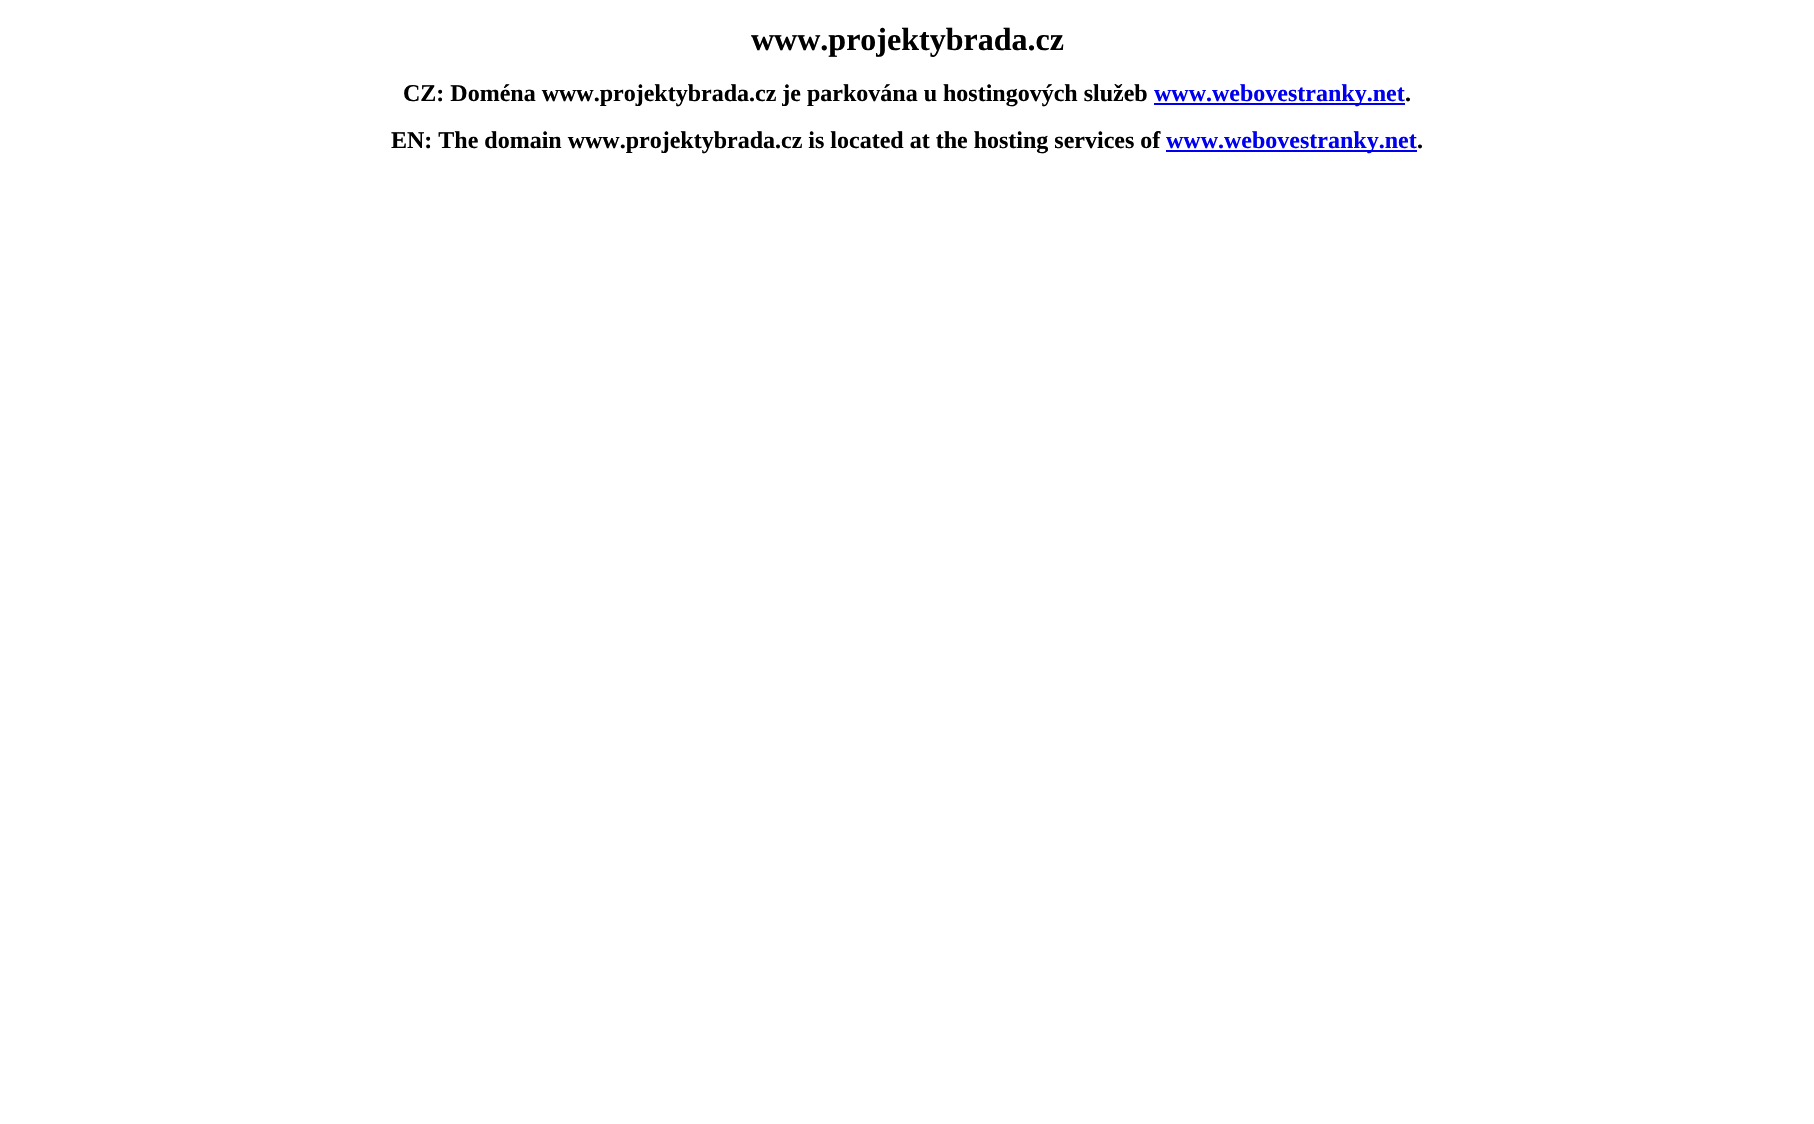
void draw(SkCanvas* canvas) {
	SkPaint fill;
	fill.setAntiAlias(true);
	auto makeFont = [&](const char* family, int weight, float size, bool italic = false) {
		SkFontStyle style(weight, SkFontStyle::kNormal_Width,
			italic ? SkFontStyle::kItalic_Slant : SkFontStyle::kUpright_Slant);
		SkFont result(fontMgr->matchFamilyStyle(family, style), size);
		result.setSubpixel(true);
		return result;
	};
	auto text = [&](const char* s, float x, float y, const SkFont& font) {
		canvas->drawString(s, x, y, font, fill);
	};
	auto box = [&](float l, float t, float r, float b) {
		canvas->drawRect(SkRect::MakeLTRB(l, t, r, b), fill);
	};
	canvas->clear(0xFFFFFFFF);
	fill.setColor(0xFF0000EE);
	box(1154, 103, 1405, 105);
	box(1166, 150, 1417, 152);
	auto font1 = makeFont("Liberation Serif", 700, 32);
	fill.setColor(0xFF000000);
	text("www.projektybrada.cz", 751, 50, font1);
	auto font2 = makeFont("Liberation Serif", 700, 24);
	text("CZ: Doména www.projektybrada.cz je parkována u hostingových služeb", 403, 101, font2);
	fill.setColor(0xFF0000EE);
	text("www.webovestranky.net", 1154, 101, font2);
	fill.setColor(0xFF000000);
	text(".", 1405, 101, font2);
	text("EN: The domain www.projektybrada.cz is located at the hosting services of", 391, 148, font2);
	fill.setColor(0xFF0000EE);
	text("www.webovestranky.net", 1166, 148, font2);
	fill.setColor(0xFF000000);
	text(".", 1417, 148, font2);
}
